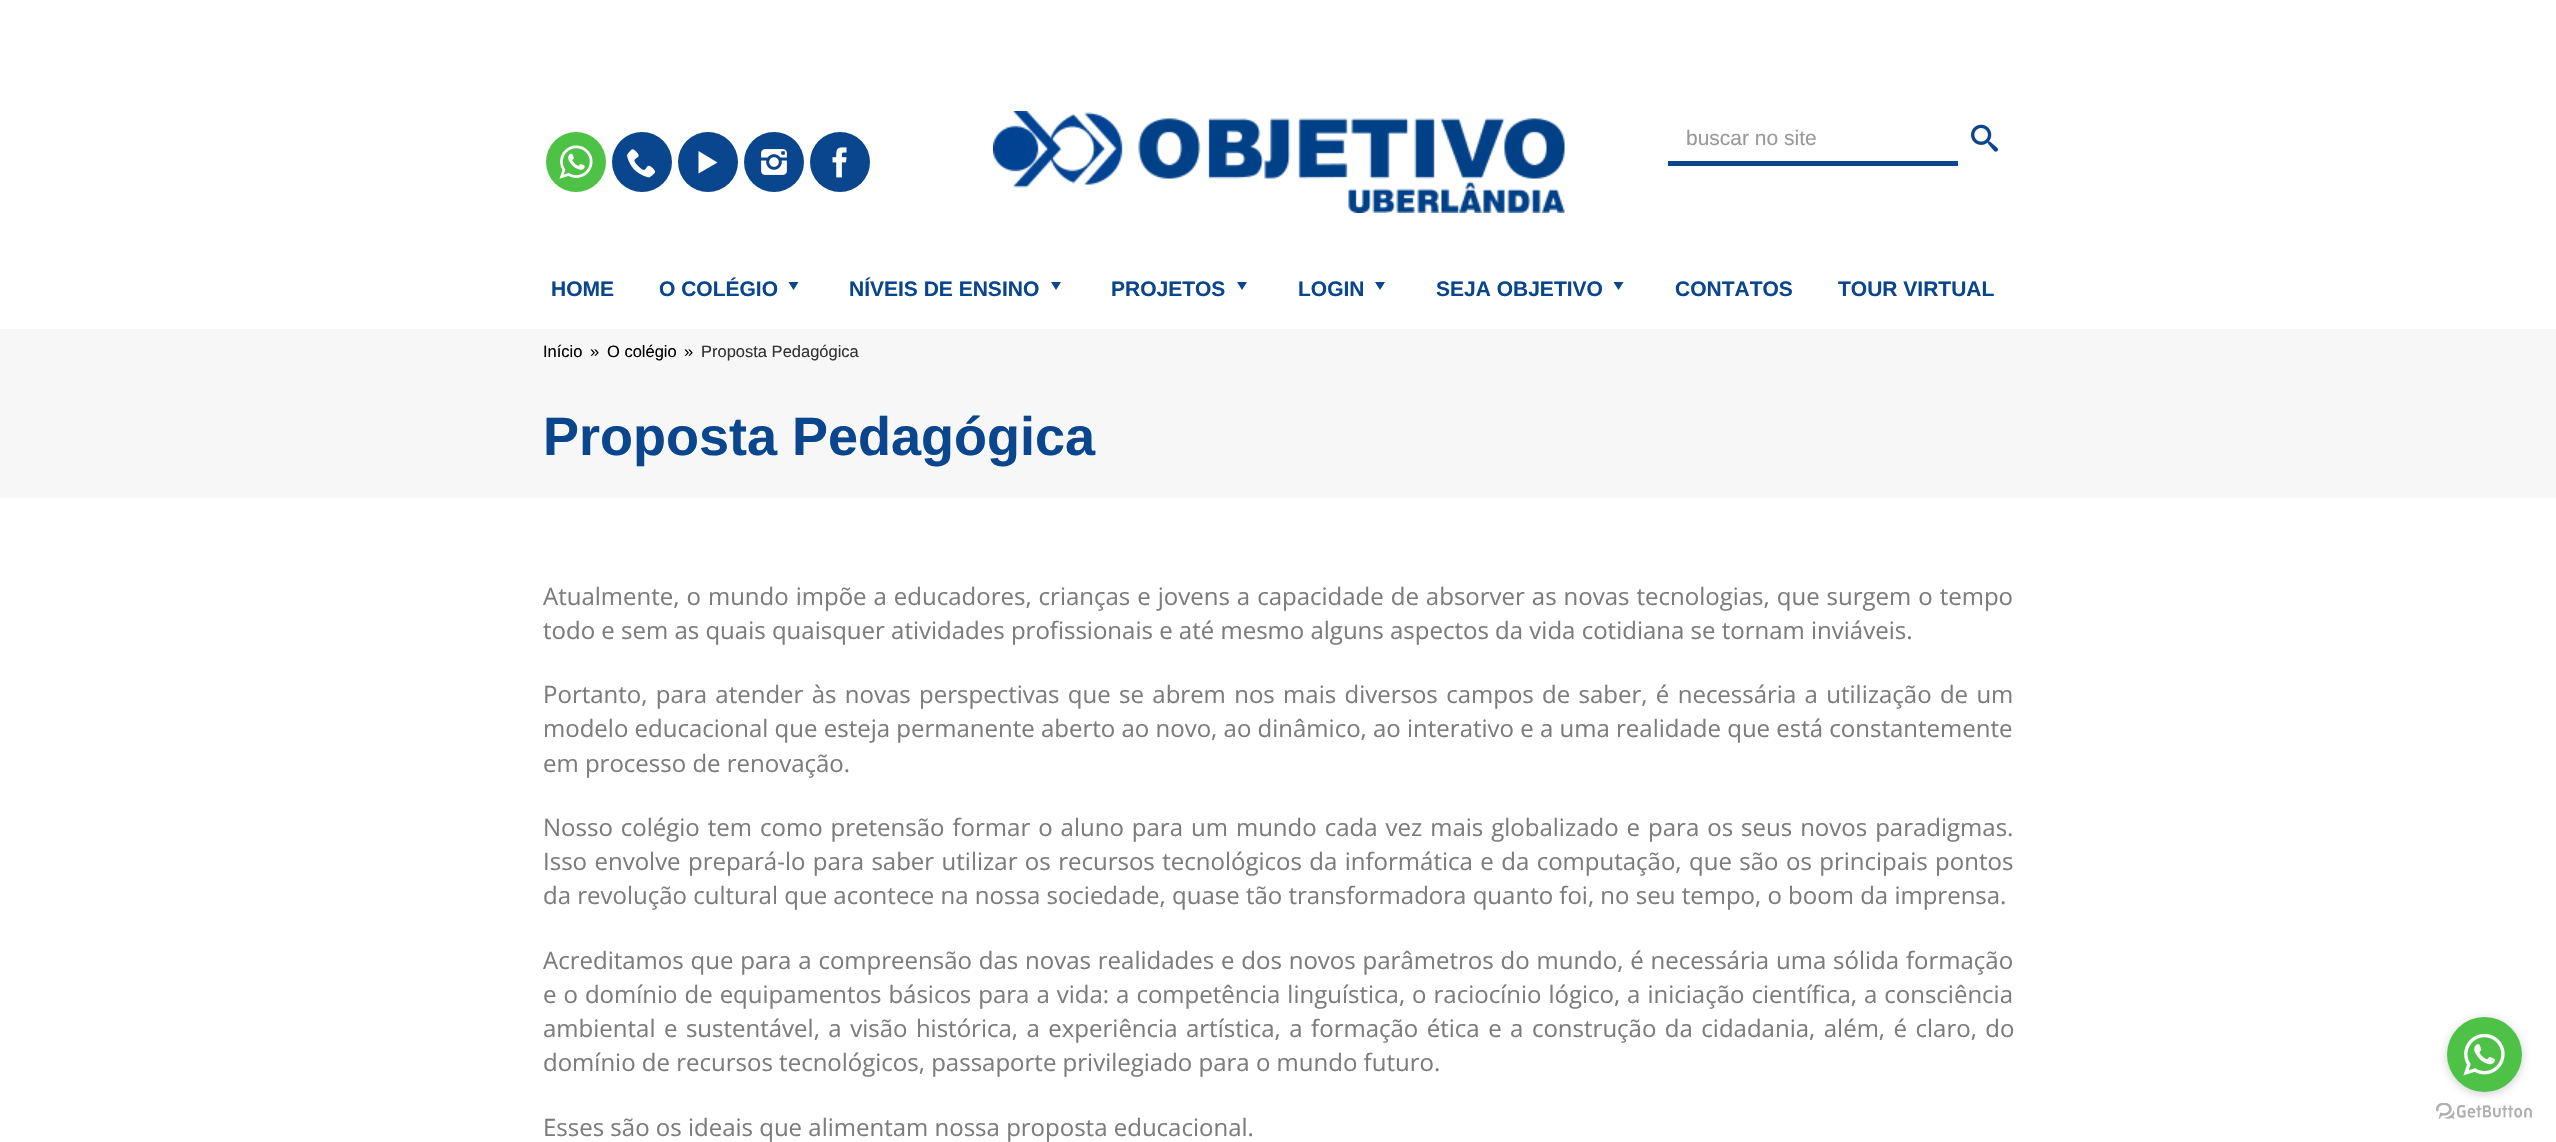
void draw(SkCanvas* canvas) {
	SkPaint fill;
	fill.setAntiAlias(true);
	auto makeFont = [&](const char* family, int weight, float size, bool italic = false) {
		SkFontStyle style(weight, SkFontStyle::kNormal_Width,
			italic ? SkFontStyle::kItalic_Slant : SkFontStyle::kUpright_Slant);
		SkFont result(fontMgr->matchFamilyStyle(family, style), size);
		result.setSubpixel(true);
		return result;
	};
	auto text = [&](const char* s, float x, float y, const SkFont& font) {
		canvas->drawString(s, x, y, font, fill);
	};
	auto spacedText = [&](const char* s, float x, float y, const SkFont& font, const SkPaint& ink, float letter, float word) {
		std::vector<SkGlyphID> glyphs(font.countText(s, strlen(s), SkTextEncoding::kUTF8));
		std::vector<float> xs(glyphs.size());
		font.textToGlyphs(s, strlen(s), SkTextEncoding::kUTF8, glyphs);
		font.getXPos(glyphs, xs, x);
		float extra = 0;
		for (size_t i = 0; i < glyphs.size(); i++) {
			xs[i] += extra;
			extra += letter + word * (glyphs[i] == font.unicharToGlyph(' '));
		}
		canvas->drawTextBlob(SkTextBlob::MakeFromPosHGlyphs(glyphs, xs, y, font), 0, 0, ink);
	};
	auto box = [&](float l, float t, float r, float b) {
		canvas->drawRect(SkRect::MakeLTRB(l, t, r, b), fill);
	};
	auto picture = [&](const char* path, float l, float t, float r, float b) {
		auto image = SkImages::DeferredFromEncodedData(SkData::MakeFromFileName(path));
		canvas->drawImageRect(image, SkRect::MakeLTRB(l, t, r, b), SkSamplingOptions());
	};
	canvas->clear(0xFFFFFFFF);
	fill.setColor(0xFF4DC247);
	canvas->drawCircle(576, 162, 30, fill);
	picture("image0.png", 559, 145, 593, 179);
	fill.setColor(0xFF0A468E);
	canvas->drawCircle(642, 162, 30, fill);
	picture("image1.png", 627, 149, 656, 178);
	canvas->drawCircle(708, 162, 30, fill);
	fill.setColor(0xFFFFFFFF);
	canvas->drawPath(SkPathBuilder().moveTo(698.5f, 151).lineTo(717.5f, 162.5f).lineTo(698.5f, 173.5f).close().detach(), fill);
	fill.setColor(0xFF0A468E);
	canvas->drawCircle(774, 162, 30, fill);
	picture("image2.png", 761, 149, 787, 175);
	canvas->drawCircle(840, 162, 30, fill);
	picture("image3.png", 832, 147, 847, 178);
	picture("image4.png", 993, 111, 1565, 213);
	box(1668, 161, 1958, 166);
	picture("image5.png", 1971, 124, 1998, 152);
	canvas->drawPath(SkPathBuilder().moveTo(798.5f, 282).lineTo(788.5f, 282).lineTo(793.5f, 290).close().detach(), fill);
	canvas->drawPath(SkPathBuilder().moveTo(1061, 282).lineTo(1051, 282).lineTo(1056, 290).close().detach(), fill);
	canvas->drawPath(SkPathBuilder().moveTo(1247, 282).lineTo(1237, 282).lineTo(1242, 290).close().detach(), fill);
	canvas->drawPath(SkPathBuilder().moveTo(1385, 282).lineTo(1375, 282).lineTo(1380, 290).close().detach(), fill);
	canvas->drawPath(SkPathBuilder().moveTo(1623.5f, 282).lineTo(1613.5f, 282).lineTo(1618.5f, 290).close().detach(), fill);
	fill.setColor(0xFFF7F7F7);
	box(0, 329, 2556, 498);
	picture("image7.png", 2436, 1103, 2532, 1119);
	fill.setColor(0x66888888);
	fill.setMaskFilter(SkMaskFilter::MakeBlur(kNormal_SkBlurStyle, 5));
	canvas->drawRoundRect(SkRect::MakeLTRB(2447, 1019, 2522, 1094), 37.5f, 37.5f, fill);
	fill.setMaskFilter(nullptr);
	fill.setColor(0xFF4DC247);
	canvas->drawCircle(2484.5f, 1054.5f, 37.5f, fill);
	picture("image6.png", 2463, 1033, 2505, 1076);
	auto font1 = makeFont("Liberation Sans", 400, 21);
	fill.setColor(0xFF999999);
	text("buscar no site", 1686, 145, font1);
	auto font2 = makeFont("Liberation Sans", 700, 21);
	fill.setColor(0xFF0A468E);
	text("HOME", 551, 296, font2);
	text("O COLÉGIO", 659, 296, font2);
	text("NÍVEIS DE ENSINO", 849, 296, font2);
	text("PROJETOS", 1111, 296, font2);
	text("LOGIN", 1298, 296, font2);
	text("SEJA OBJETIVO", 1436, 296, font2);
	text("CONTATOS", 1675, 296, font2);
	text("TOUR VIRTUAL", 1838, 296, font2);
	auto font3 = makeFont("Liberation Sans", 400, 16.5f);
	fill.setColor(0xFF000000);
	text("Início", 543, 357, font3);
	text("»", 590, 357, font3);
	text("O colégio", 607, 357, font3);
	text("»", 684, 357, font3);
	fill.setColor(0xFF333333);
	text("Proposta Pedagógica", 701, 357, font3);
	auto font4 = makeFont("Liberation Sans", 700, 54);
	fill.setColor(0xFF0A468E);
	text("Proposta Pedagógica", 543, 455, font4);
	auto font5 = makeFont("Open Sans", 400, 24);
	fill.setColor(0xFF7C7C7C);
	spacedText("Atualmente, o mundo impõe a educadores, crianças e jovens a capacidade de absorver as novas tecnologias, que surgem o tempo", 543, 605, font5, fill, 0, 0.75f);
	text("todo e sem as quais quaisquer atividades profissionais e até mesmo alguns aspectos da vida cotidiana se tornam inviáveis.", 543, 639, font5);
	spacedText("Portanto, para atender às novas perspectivas que se abrem nos mais diversos campos de saber, é necessária a utilização de um", 543, 703, font5, fill, 0, 2.1f);
	text("modelo educacional que esteja permanente aberto ao novo, ao dinâmico, ao interativo e a uma realidade que está constantemente", 543, 737, font5);
	text("em processo de renovação.", 543, 772, font5);
	spacedText("Nosso colégio tem como pretensão formar o aluno para um mundo cada vez mais globalizado e para os seus novos paradigmas.", 543, 836, font5, fill, 0, 1.75f);
	spacedText("Isso envolve prepará-lo para saber utilizar os recursos tecnológicos da informática e da computação, que são os principais pontos", 543, 870, font5, fill, 0, 1.2f);
	text("da revolução cultural que acontece na nossa sociedade, quase tão transformadora quanto foi, no seu tempo, o boom da imprensa.", 543, 904, font5);
	spacedText("Acreditamos que para a compreensão das novas realidades e dos novos parâmetros do mundo, é necessária uma sólida formação", 543, 969, font5, fill, 0, 0.6f);
	spacedText("e o domínio de equipamentos básicos para a vida: a competência linguística, o raciocínio lógico, a iniciação científica, a consciência", 543, 1003, font5, fill, 0, 0.75f);
	spacedText("ambiental e sustentável, a visão histórica, a experiência artística, a formação ética e a construção da cidadania, além, é claro, do", 543, 1037, font5, fill, 0, 2.25f);
	text("domínio de recursos tecnológicos, passaporte privilegiado para o mundo futuro.", 543, 1071, font5);
	text("Esses são os ideais que alimentam nossa proposta educacional.", 543, 1136, font5);
}
